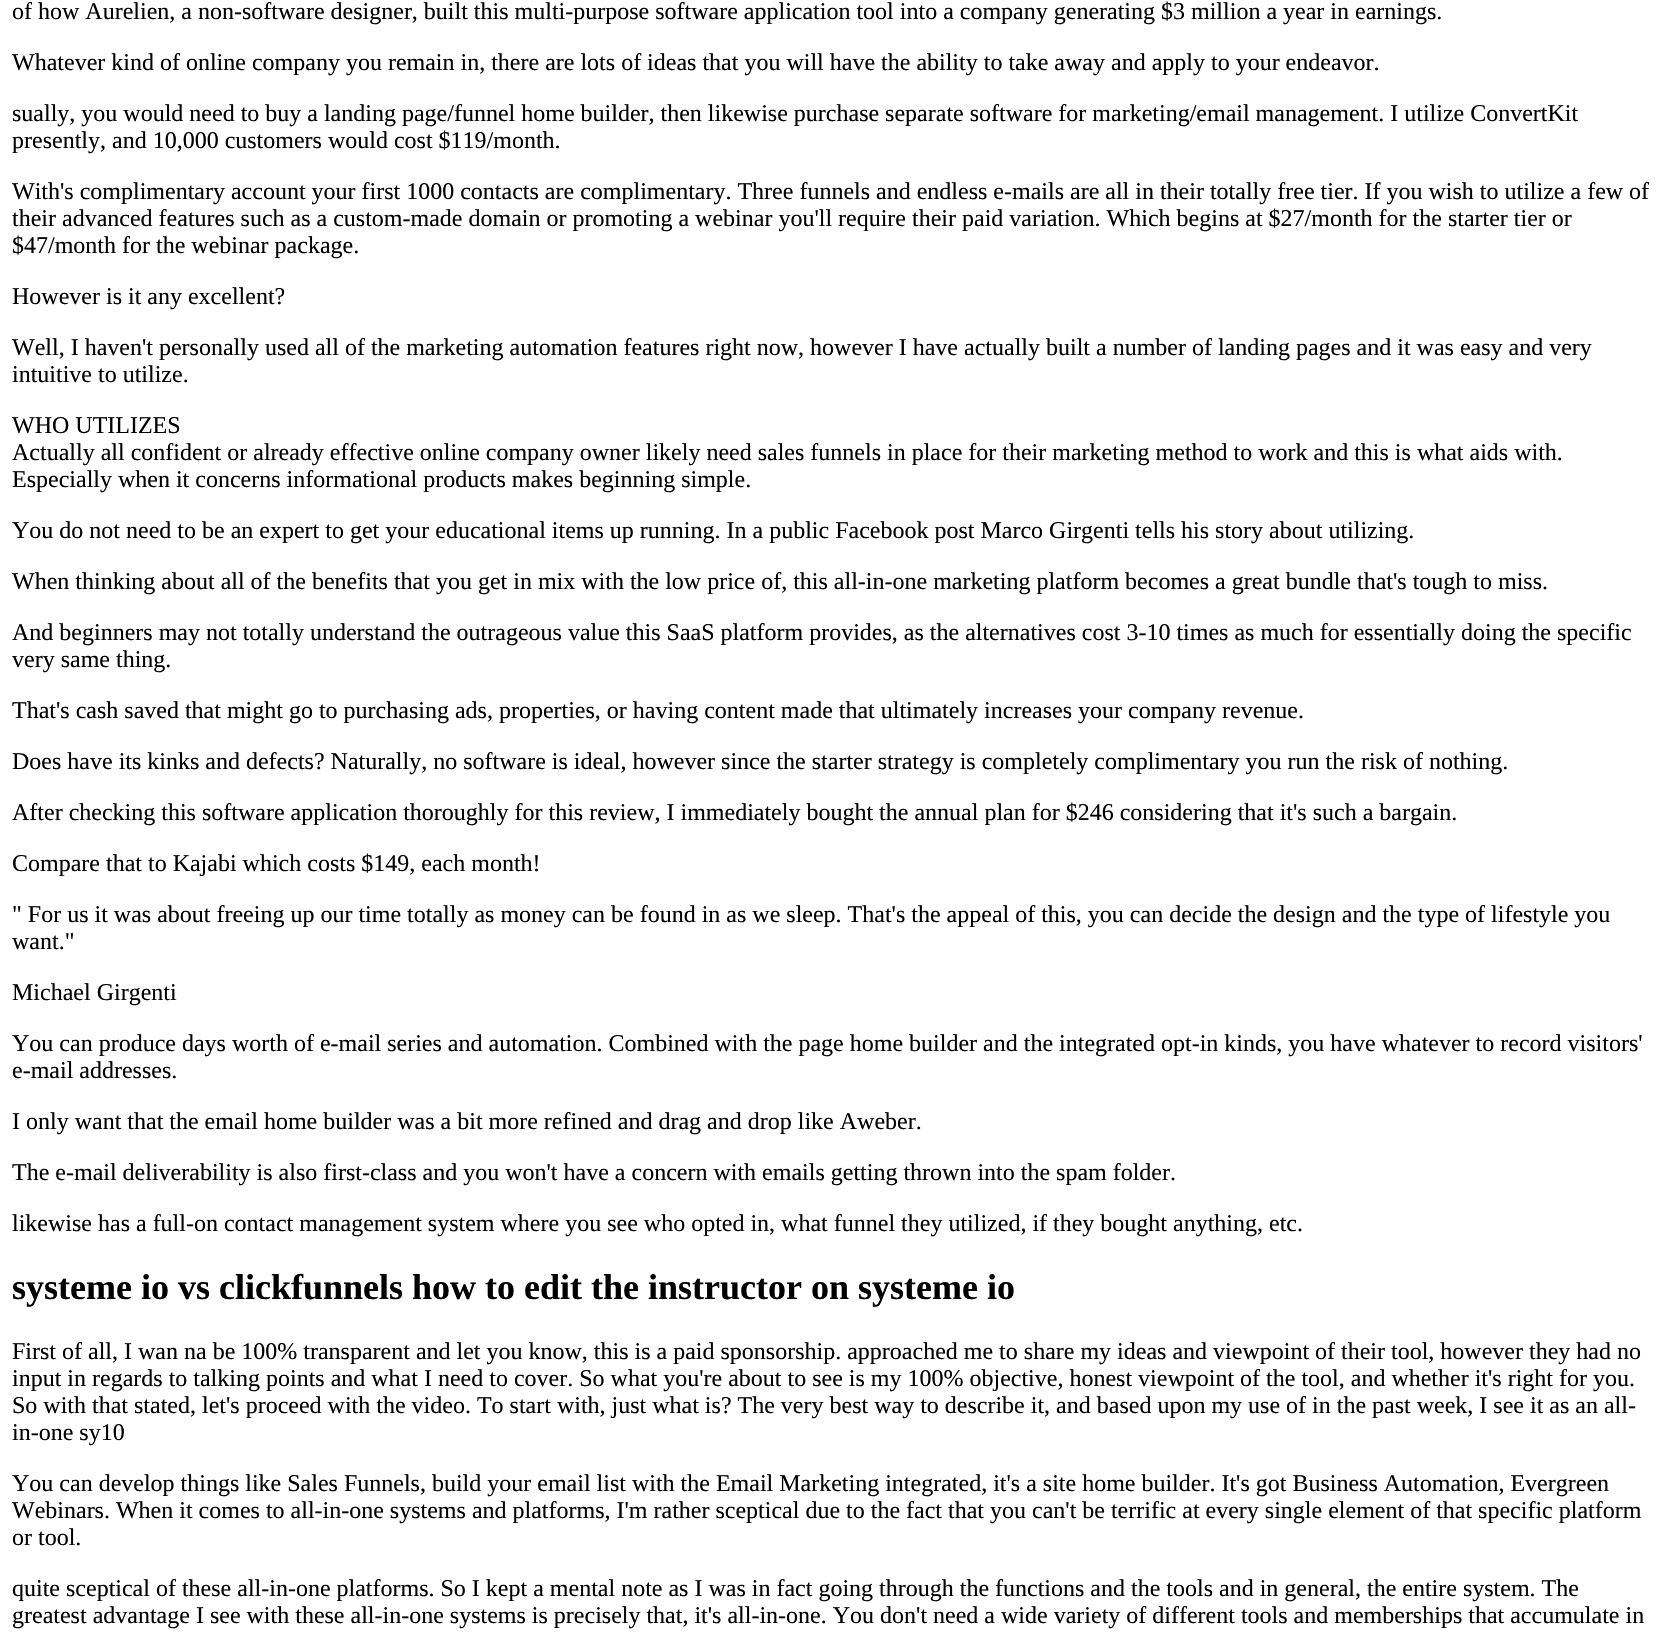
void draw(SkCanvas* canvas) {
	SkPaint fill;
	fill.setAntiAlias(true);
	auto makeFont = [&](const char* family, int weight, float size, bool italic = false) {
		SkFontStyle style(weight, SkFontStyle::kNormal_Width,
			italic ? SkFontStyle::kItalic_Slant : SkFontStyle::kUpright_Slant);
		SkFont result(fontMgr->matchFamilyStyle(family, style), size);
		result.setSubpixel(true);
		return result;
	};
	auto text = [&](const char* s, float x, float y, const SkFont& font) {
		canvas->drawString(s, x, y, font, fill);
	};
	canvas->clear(0xFFFFFFFF);
	auto font1 = makeFont("Liberation Serif", 400, 24);
	fill.setColor(0xFF000000);
	text("of how Aurelien, a non-software designer, built this multi-purpose software application tool into a company generating $3 million a year in earnings.", 12, 19, font1);
	text("Whatever kind of online company you remain in, there are lots of ideas that you will have the ability to take away and apply to your endeavor.", 12, 70, font1);
	text("sually, you would need to buy a landing page/funnel home builder, then likewise purchase separate software for marketing/email management. I utilize ConvertKit", 12, 121, font1);
	text("presently, and 10,000 customers would cost $119/month.", 12, 148, font1);
	text("With's complimentary account your first 1000 contacts are complimentary. Three funnels and endless e-mails are all in their totally free tier. If you wish to utilize a few of", 12, 199, font1);
	text("their advanced features such as a custom-made domain or promoting a webinar you'll require their paid variation. Which begins at $27/month for the starter tier or", 12, 226, font1);
	text("$47/month for the webinar package.", 12, 253, font1);
	text("However is it any excellent?", 12, 304, font1);
	text("Well, I haven't personally used all of the marketing automation features right now, however I have actually built a number of landing pages and it was easy and very", 12, 355, font1);
	text("intuitive to utilize.", 12, 382, font1);
	text("WHO UTILIZES", 12, 433, font1);
	text("Actually all confident or already effective online company owner likely need sales funnels in place for their marketing method to work and this is what aids with.", 12, 460, font1);
	text("Especially when it concerns informational products makes beginning simple.", 12, 487, font1);
	text("You do not need to be an expert to get your educational items up running. In a public Facebook post Marco Girgenti tells his story about utilizing.", 12, 538, font1);
	text("When thinking about all of the benefits that you get in mix with the low price of, this all-in-one marketing platform becomes a great bundle that's tough to miss.", 12, 589, font1);
	text("And beginners may not totally understand the outrageous value this SaaS platform provides, as the alternatives cost 3-10 times as much for essentially doing the specific", 12, 640, font1);
	text("very same thing.", 12, 667, font1);
	text("That's cash saved that might go to purchasing ads, properties, or having content made that ultimately increases your company revenue.", 12, 718, font1);
	text("Does have its kinks and defects? Naturally, no software is ideal, however since the starter strategy is completely complimentary you run the risk of nothing.", 12, 769, font1);
	text("After checking this software application thoroughly for this review, I immediately bought the annual plan for $246 considering that it's such a bargain.", 12, 820, font1);
	text("Compare that to Kajabi which costs $149, each month!", 12, 871, font1);
	text("\" For us it was about freeing up our time totally as money can be found in as we sleep. That's the appeal of this, you can decide the design and the type of lifestyle you", 12, 922, font1);
	text("want.\"", 12, 949, font1);
	text("Michael Girgenti", 12, 1000, font1);
	text("You can produce days worth of e-mail series and automation. Combined with the page home builder and the integrated opt-in kinds, you have whatever to record visitors'", 12, 1051, font1);
	text("e-mail addresses.", 12, 1078, font1);
	text("I only want that the email home builder was a bit more refined and drag and drop like Aweber.", 12, 1129, font1);
	text("The e-mail deliverability is also first-class and you won't have a concern with emails getting thrown into the spam folder.", 12, 1180, font1);
	text("likewise has a full-on contact management system where you see who opted in, what funnel they utilized, if they bought anything, etc.", 12, 1231, font1);
	auto font2 = makeFont("Liberation Serif", 700, 36);
	text("systeme io vs clickfunnels how to edit the instructor on systeme io", 12, 1299, font2);
	text("First of all, I wan na be 100% transparent and let you know, this is a paid sponsorship. approached me to share my ideas and viewpoint of their tool, however they had no", 12, 1359, font1);
	text("input in regards to talking points and what I need to cover. So what you're about to see is my 100% objective, honest viewpoint of the tool, and whether it's right for you.", 12, 1386, font1);
	text("So with that stated, let's proceed with the video. To start with, just what is? The very best way to describe it, and based upon my use of in the past week, I see it as an all-", 12, 1413, font1);
	text("in-one sy10", 12, 1440, font1);
	text("You can develop things like Sales Funnels, build your email list with the Email Marketing integrated, it's a site home builder. It's got Business Automation, Evergreen", 12, 1491, font1);
	text("Webinars. When it comes to all-in-one systems and platforms, I'm rather sceptical due to the fact that you can't be terrific at every single element of that specific platform", 12, 1518, font1);
	text("or tool.", 12, 1545, font1);
	text("quite sceptical of these all-in-one platforms. So I kept a mental note as I was in fact going through the functions and the tools and in general, the entire system. The", 12, 1596, font1);
	text("greatest advantage I see with these all-in-one systems is precisely that, it's all-in-one. You don't need a wide variety of different tools and memberships that accumulate in", 12, 1623, font1);
}
